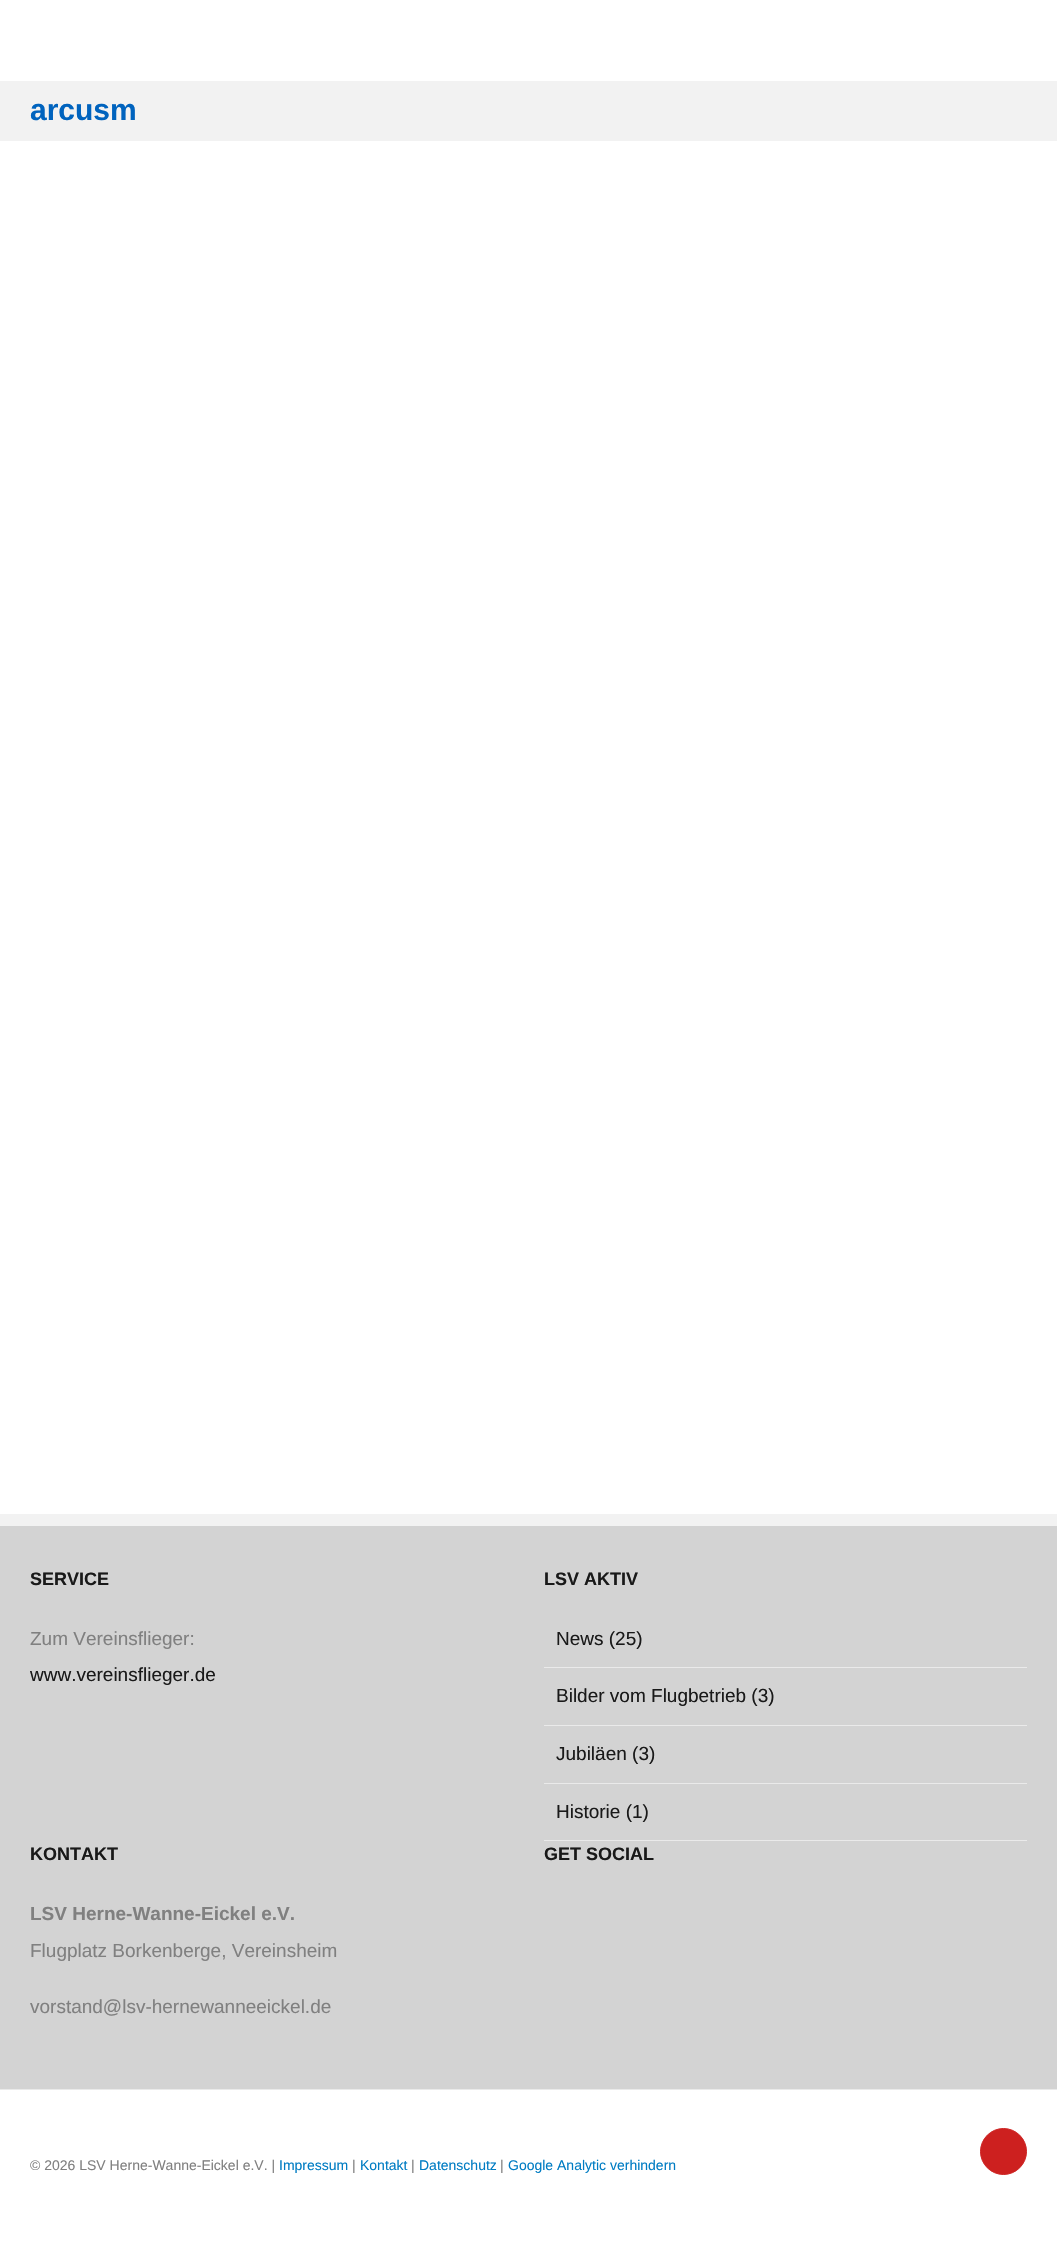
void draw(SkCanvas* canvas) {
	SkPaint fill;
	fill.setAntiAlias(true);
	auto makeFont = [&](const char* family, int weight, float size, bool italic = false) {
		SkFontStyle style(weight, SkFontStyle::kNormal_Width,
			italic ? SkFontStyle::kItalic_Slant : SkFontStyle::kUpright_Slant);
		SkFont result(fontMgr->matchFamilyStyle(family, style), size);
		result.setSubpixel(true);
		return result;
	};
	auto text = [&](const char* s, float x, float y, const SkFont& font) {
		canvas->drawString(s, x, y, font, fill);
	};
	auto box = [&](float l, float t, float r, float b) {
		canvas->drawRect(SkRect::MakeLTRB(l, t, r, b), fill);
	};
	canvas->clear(0xFFFFFFFF);
	fill.setColor(0xFFF2F2F2);
	box(0, 81, 1057, 141);
	fill.setColor(0xFFD3D3D3);
	box(0, 1526, 1057, 2089);
	fill.setColor(0xFFF2F2F2);
	box(0, 1514, 1057, 1526);
	fill.setColor(0xFFEAEAEA);
	box(544, 1667, 1027, 1668);
	box(544, 1725, 1027, 1726);
	box(544, 1783, 1027, 1784);
	box(544, 1840, 1027, 1841);
	box(0, 2089, 1057, 2090);
	fill.setColor(0xFFCD201F);
	canvas->drawCircle(1003.5f, 2151.5f, 23, fill);
	fill.setStyle(SkPaint::kStroke_Style);
	fill.setStrokeWidth(1);
	canvas->drawCircle(1003.5f, 2151.5f, 23, fill);
	auto font1 = makeFont("Liberation Sans", 700, 30);
	fill.setStyle(SkPaint::kFill_Style);
	fill.setColor(0xFF0063BE);
	text("arcusm", 30, 120, font1);
	auto font2 = makeFont("Liberation Sans", 700, 18);
	fill.setColor(0xFF191919);
	text("SERVICE", 30, 1585, font2);
	auto font3 = makeFont("Liberation Sans", 400, 19);
	fill.setColor(0xFF808080);
	text("Zum Vereinsflieger:", 30, 1645, font3);
	fill.setColor(0xFF191919);
	text("www.vereinsflieger.de", 30, 1681, font3);
	text("LSV AKTIV", 544, 1585, font2);
	text("News (25)", 556, 1645, font3);
	text("Bilder vom Flugbetrieb (3)", 556, 1702, font3);
	text("Jubiläen (3)", 556, 1760, font3);
	text("Historie (1)", 556, 1818, font3);
	text("KONTAKT", 30, 1860, font2);
	auto font4 = makeFont("Liberation Sans", 700, 19);
	fill.setColor(0xFF808080);
	text("LSV Herne-Wanne-Eickel e.V.", 30, 1920, font4);
	text("Flugplatz Borkenberge, Vereinsheim", 30, 1957, font3);
	text("vorstand@lsv-hernewanneeickel.de", 30, 2013, font3);
	fill.setColor(0xFF191919);
	text("GET SOCIAL", 544, 1860, font2);
	auto font5 = makeFont("Liberation Sans", 400, 14);
	fill.setColor(0xFF808080);
	text("© 2026 LSV Herne-Wanne-Eickel e.V. |", 30, 2170, font5);
	fill.setColor(0xFF007CC3);
	text("Impressum", 279, 2170, font5);
	fill.setColor(0xFF808080);
	text("|", 352, 2170, font5);
	fill.setColor(0xFF007CC3);
	text("Kontakt", 360, 2170, font5);
	fill.setColor(0xFF808080);
	text("|", 411, 2170, font5);
	fill.setColor(0xFF007CC3);
	text("Datenschutz", 419, 2170, font5);
	fill.setColor(0xFF808080);
	text("|", 500, 2170, font5);
	fill.setColor(0xFF007CC3);
	text("Google Analytic verhindern", 508, 2170, font5);
}
